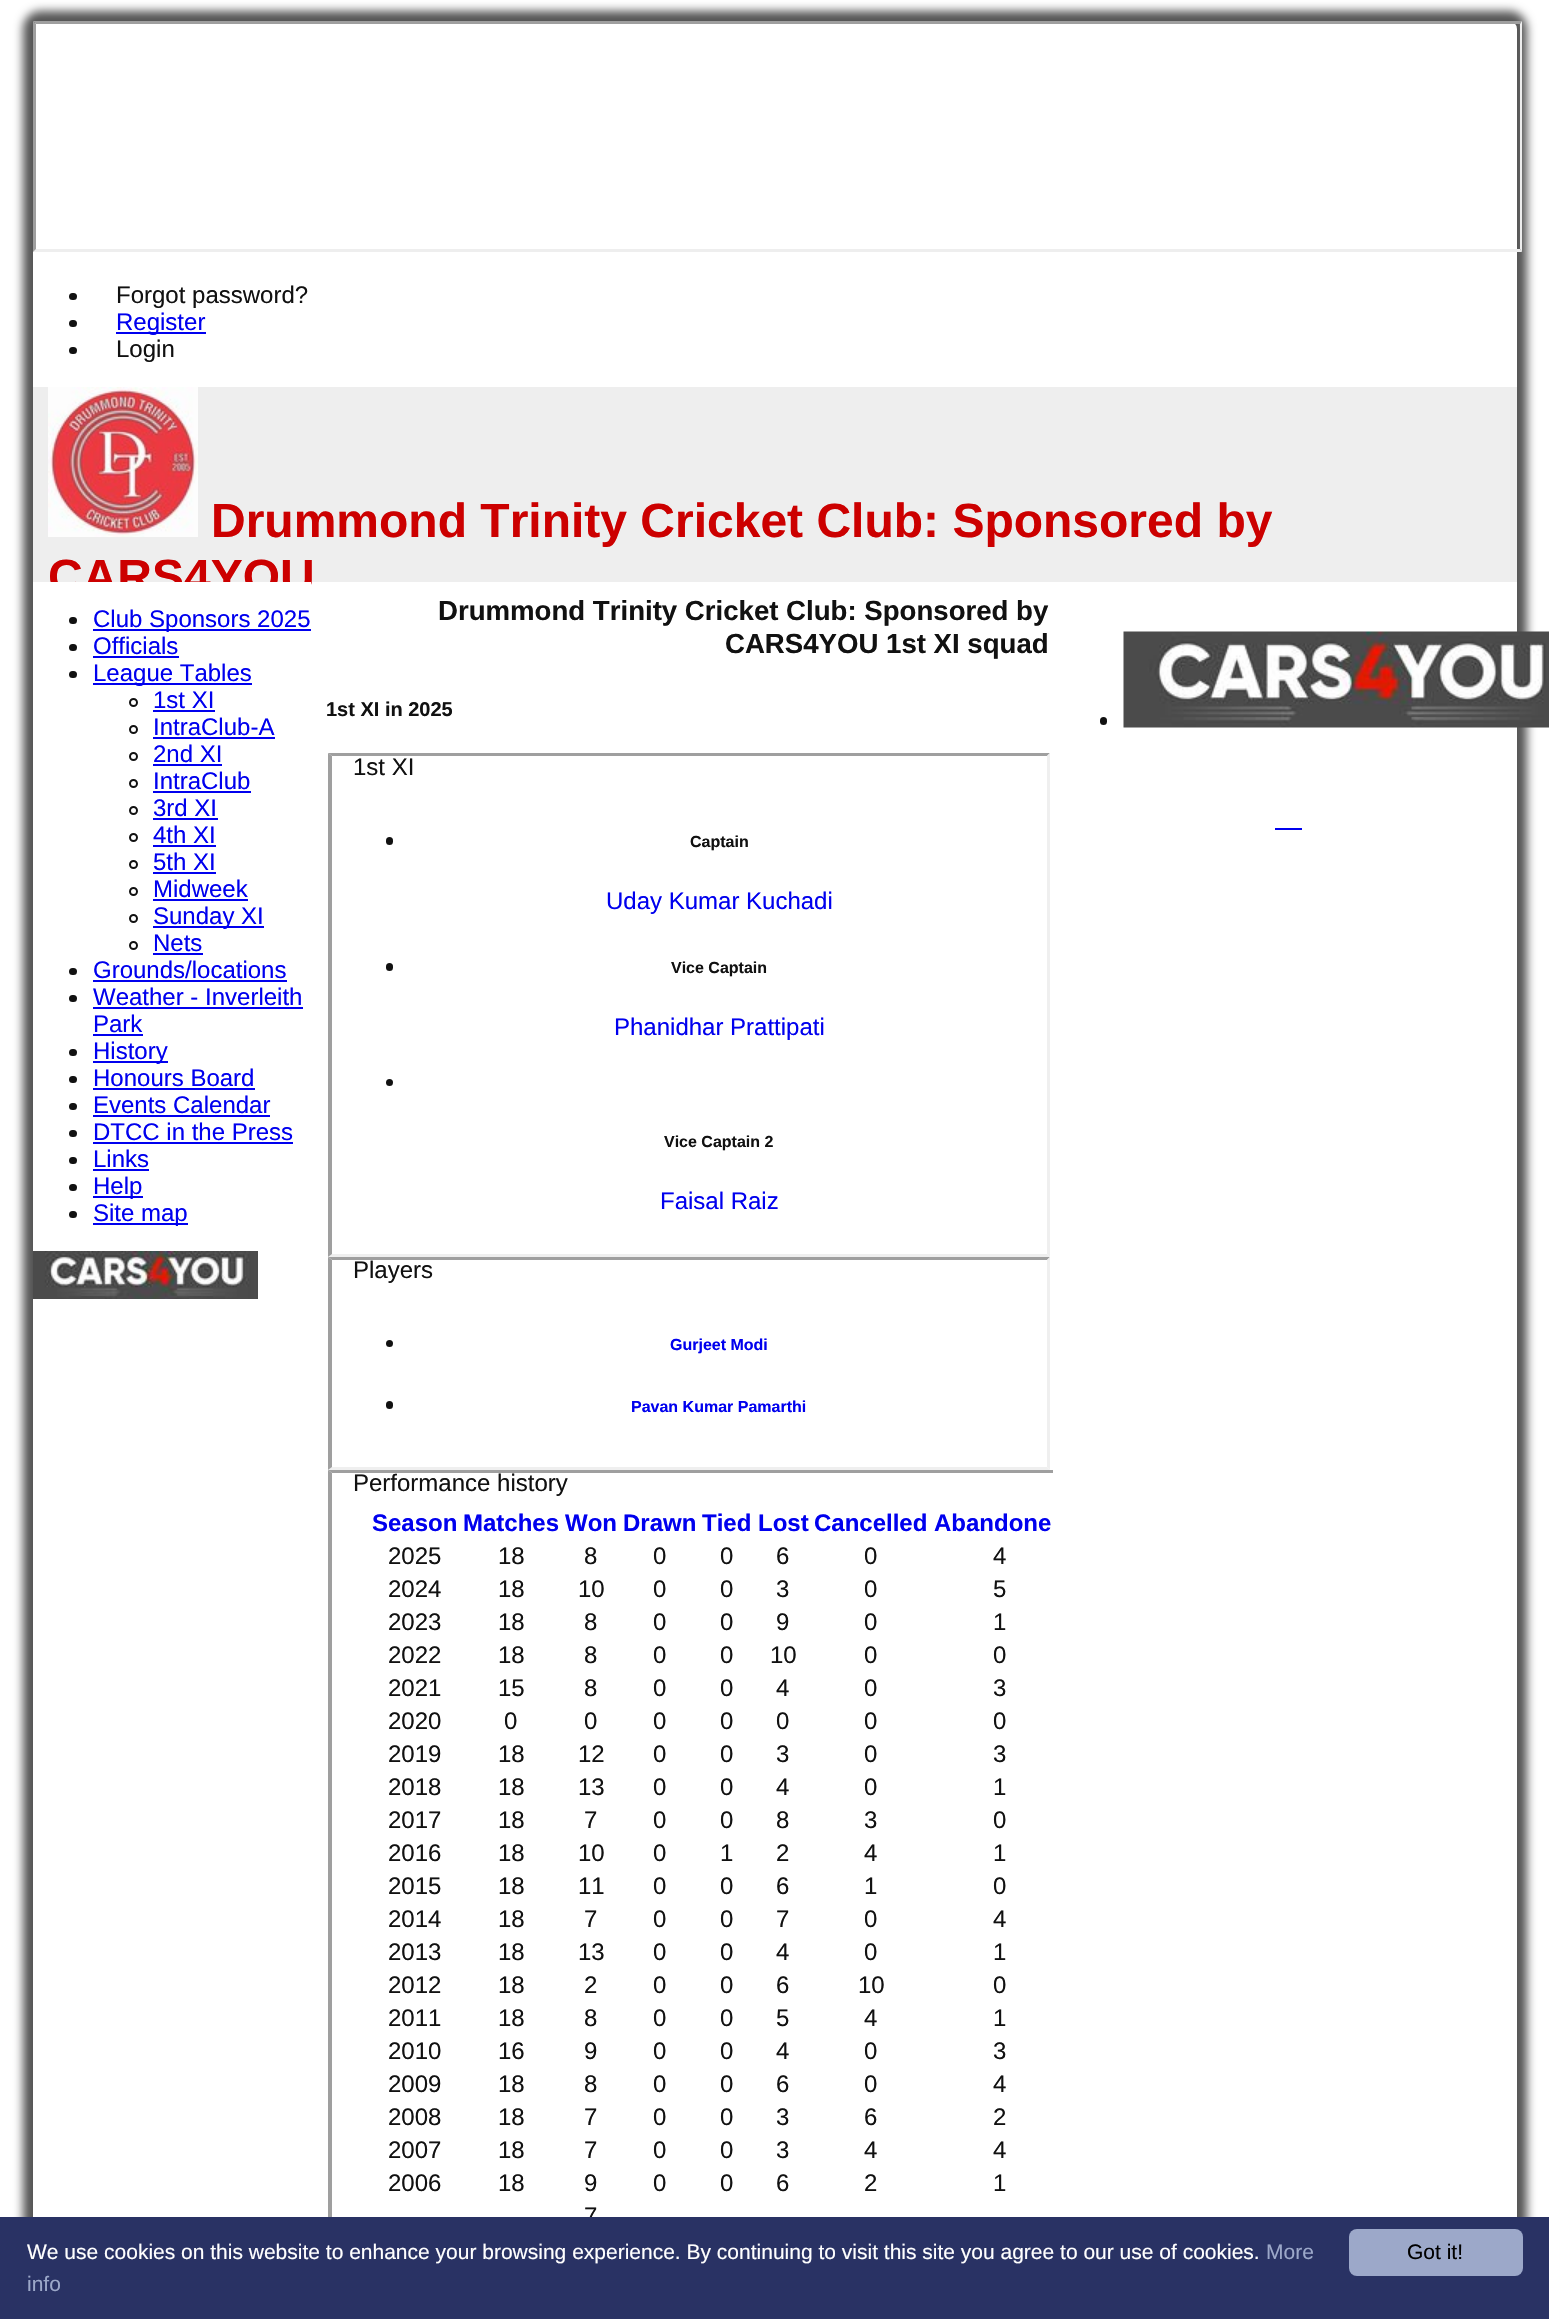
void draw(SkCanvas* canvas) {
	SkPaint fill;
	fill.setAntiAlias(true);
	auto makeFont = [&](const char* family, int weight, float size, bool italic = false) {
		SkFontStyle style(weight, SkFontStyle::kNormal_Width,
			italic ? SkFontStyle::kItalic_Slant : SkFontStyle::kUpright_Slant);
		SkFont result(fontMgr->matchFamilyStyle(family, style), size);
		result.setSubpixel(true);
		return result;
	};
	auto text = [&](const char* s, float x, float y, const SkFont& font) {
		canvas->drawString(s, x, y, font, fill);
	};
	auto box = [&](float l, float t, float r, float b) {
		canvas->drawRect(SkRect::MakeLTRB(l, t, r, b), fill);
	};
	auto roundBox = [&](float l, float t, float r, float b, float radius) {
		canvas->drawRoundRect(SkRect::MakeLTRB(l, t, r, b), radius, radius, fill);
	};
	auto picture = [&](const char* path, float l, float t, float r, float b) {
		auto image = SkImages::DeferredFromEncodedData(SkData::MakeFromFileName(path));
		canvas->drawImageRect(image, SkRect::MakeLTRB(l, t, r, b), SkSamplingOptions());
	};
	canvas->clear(0xFFFFFFFF);
	fill.setColor(0xFF555555);
	fill.setMaskFilter(SkMaskFilter::MakeBlur(kNormal_SkBlurStyle, 5));
	canvas->drawRoundRect(SkRect::MakeLTRB(23, 11, 1527, 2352), 18, 18, fill);
	fill.setMaskFilter(nullptr);
	fill.setColor(0xFFFFFFFF);
	roundBox(33, 21, 1517, 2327, 8);
	fill.setColor(0xFF9F9F9F);
	canvas->drawPath(SkPathBuilder().moveTo(33, 21).lineTo(1522, 21).lineTo(1520, 24).lineTo(36, 24).close().detach(), fill);
	fill.setColor(0xFFEEEEEE);
	canvas->drawPath(SkPathBuilder().moveTo(1522, 21).lineTo(1522, 252).lineTo(1520, 249).lineTo(1520, 24).close().detach(), fill);
	canvas->drawPath(SkPathBuilder().moveTo(1522, 252).lineTo(33, 252).lineTo(36, 249).lineTo(1520, 249).close().detach(), fill);
	fill.setColor(0xFF9F9F9F);
	canvas->drawPath(SkPathBuilder().moveTo(33, 252).lineTo(33, 21).lineTo(36, 24).lineTo(36, 249).close().detach(), fill);
	fill.setColor(0xFF111111);
	roundBox(69, 293, 77, 300, 3.5f);
	roundBox(69, 320, 77, 327, 3.5f);
	fill.setColor(0xFF0000EE);
	box(116, 332, 206, 334);
	fill.setColor(0xFF111111);
	roundBox(69, 347, 77, 354, 3.5f);
	fill.setColor(0xFFEEEEEE);
	box(33, 387, 1517, 582);
	picture("image0.png", 48, 387, 198, 537);
	fill.setColor(0xFF111111);
	roundBox(1100, 717, 1107, 725, 3.5f);
	picture("image1.png", 1123, 631, 1549, 728);
	fill.setColor(0xFF0000EE);
	box(1275, 828, 1302, 830);
	fill.setColor(0xFF111111);
	roundBox(69, 617, 77, 624, 3.5f);
	fill.setColor(0xFF0000EE);
	box(93, 629, 311, 631);
	fill.setColor(0xFF111111);
	roundBox(69, 644, 77, 651, 3.5f);
	fill.setColor(0xFF0000EE);
	box(93, 656, 179, 658);
	fill.setColor(0xFF111111);
	roundBox(69, 671, 77, 678, 3.5f);
	fill.setColor(0xFF0000EE);
	box(93, 683, 252, 685);
	fill.setStyle(SkPaint::kStroke_Style);
	fill.setStrokeWidth(2);
	fill.setColor(0xFF111111);
	canvas->drawCircle(133.5f, 702.5f, 3.5f, fill);
	fill.setStyle(SkPaint::kFill_Style);
	fill.setColor(0xFF0000EE);
	box(153, 710, 215, 712);
	fill.setStyle(SkPaint::kStroke_Style);
	fill.setColor(0xFF111111);
	canvas->drawCircle(133.5f, 729.5f, 3.5f, fill);
	fill.setStyle(SkPaint::kFill_Style);
	fill.setColor(0xFF0000EE);
	box(153, 737, 275, 739);
	fill.setStyle(SkPaint::kStroke_Style);
	fill.setColor(0xFF111111);
	canvas->drawCircle(133.5f, 756.5f, 3.5f, fill);
	fill.setStyle(SkPaint::kFill_Style);
	fill.setColor(0xFF0000EE);
	box(153, 764, 222, 766);
	fill.setStyle(SkPaint::kStroke_Style);
	fill.setColor(0xFF111111);
	canvas->drawCircle(133.5f, 783.5f, 3.5f, fill);
	fill.setStyle(SkPaint::kFill_Style);
	fill.setColor(0xFF0000EE);
	box(153, 791, 251, 793);
	fill.setStyle(SkPaint::kStroke_Style);
	fill.setColor(0xFF111111);
	canvas->drawCircle(133.5f, 810.5f, 3.5f, fill);
	fill.setStyle(SkPaint::kFill_Style);
	fill.setColor(0xFF0000EE);
	box(153, 818, 218, 820);
	fill.setStyle(SkPaint::kStroke_Style);
	fill.setColor(0xFF111111);
	canvas->drawCircle(133.5f, 837.5f, 3.5f, fill);
	fill.setStyle(SkPaint::kFill_Style);
	fill.setColor(0xFF0000EE);
	box(153, 845, 216, 847);
	fill.setStyle(SkPaint::kStroke_Style);
	fill.setColor(0xFF111111);
	canvas->drawCircle(133.5f, 864.5f, 3.5f, fill);
	fill.setStyle(SkPaint::kFill_Style);
	fill.setColor(0xFF0000EE);
	box(153, 872, 216, 874);
	fill.setStyle(SkPaint::kStroke_Style);
	fill.setColor(0xFF111111);
	canvas->drawCircle(133.5f, 891.5f, 3.5f, fill);
	fill.setStyle(SkPaint::kFill_Style);
	fill.setColor(0xFF0000EE);
	box(153, 899, 248, 901);
	fill.setStyle(SkPaint::kStroke_Style);
	fill.setColor(0xFF111111);
	canvas->drawCircle(133.5f, 918.5f, 3.5f, fill);
	fill.setStyle(SkPaint::kFill_Style);
	fill.setColor(0xFF0000EE);
	box(153, 926, 264, 928);
	fill.setStyle(SkPaint::kStroke_Style);
	fill.setColor(0xFF111111);
	canvas->drawCircle(133.5f, 945.5f, 3.5f, fill);
	fill.setStyle(SkPaint::kFill_Style);
	fill.setColor(0xFF0000EE);
	box(153, 953, 203, 955);
	fill.setColor(0xFF111111);
	roundBox(69, 968, 77, 975, 3.5f);
	fill.setColor(0xFF0000EE);
	box(93, 980, 287, 982);
	fill.setColor(0xFF111111);
	roundBox(69, 995, 77, 1002, 3.5f);
	fill.setColor(0xFF0000EE);
	box(93, 1007, 303, 1009);
	box(93, 1034, 143, 1036);
	fill.setColor(0xFF111111);
	roundBox(69, 1049, 77, 1056, 3.5f);
	fill.setColor(0xFF0000EE);
	box(93, 1061, 168, 1063);
	fill.setColor(0xFF111111);
	roundBox(69, 1076, 77, 1083, 3.5f);
	fill.setColor(0xFF0000EE);
	box(93, 1088, 255, 1090);
	fill.setColor(0xFF111111);
	roundBox(69, 1103, 77, 1110, 3.5f);
	fill.setColor(0xFF0000EE);
	box(93, 1115, 270, 1117);
	fill.setColor(0xFF111111);
	roundBox(69, 1130, 77, 1137, 3.5f);
	fill.setColor(0xFF0000EE);
	box(93, 1142, 293, 1144);
	fill.setColor(0xFF111111);
	roundBox(69, 1157, 77, 1164, 3.5f);
	fill.setColor(0xFF0000EE);
	box(93, 1169, 149, 1171);
	fill.setColor(0xFF111111);
	roundBox(69, 1184, 77, 1191, 3.5f);
	fill.setColor(0xFF0000EE);
	box(93, 1196, 143, 1198);
	fill.setColor(0xFF111111);
	roundBox(69, 1211, 77, 1218, 3.5f);
	fill.setColor(0xFF0000EE);
	box(93, 1223, 188, 1225);
	picture("image2.png", 33, 1251, 258, 1299);
	fill.setColor(0xFF9F9F9F);
	canvas->drawPath(SkPathBuilder().moveTo(328, 753).lineTo(1050, 753).lineTo(1047, 756).lineTo(332, 756).close().detach(), fill);
	fill.setColor(0xFFEFEFEF);
	canvas->drawPath(SkPathBuilder().moveTo(1050, 753).lineTo(1050, 1257).lineTo(1047, 1254).lineTo(1047, 756).close().detach(), fill);
	canvas->drawPath(SkPathBuilder().moveTo(1050, 1257).lineTo(328, 1257).lineTo(332, 1254).lineTo(1047, 1254).close().detach(), fill);
	fill.setColor(0xFF9F9F9F);
	canvas->drawPath(SkPathBuilder().moveTo(328, 1257).lineTo(328, 753).lineTo(332, 756).lineTo(332, 1254).close().detach(), fill);
	fill.setColor(0xFF111111);
	roundBox(386, 837, 393, 845, 3.5f);
	roundBox(386, 963, 393, 971, 3.5f);
	canvas->drawCircle(389.5f, 1082.5f, 3.5f, fill);
	fill.setColor(0xFF9F9F9F);
	canvas->drawPath(SkPathBuilder().moveTo(328, 1257).lineTo(1050, 1257).lineTo(1047, 1260).lineTo(332, 1260).close().detach(), fill);
	fill.setColor(0xFFEFEFEF);
	canvas->drawPath(SkPathBuilder().moveTo(1050, 1257).lineTo(1050, 1470).lineTo(1047, 1467).lineTo(1047, 1260).close().detach(), fill);
	canvas->drawPath(SkPathBuilder().moveTo(1050, 1470).lineTo(328, 1470).lineTo(332, 1467).lineTo(1047, 1467).close().detach(), fill);
	fill.setColor(0xFF9F9F9F);
	canvas->drawPath(SkPathBuilder().moveTo(328, 1470).lineTo(328, 1257).lineTo(332, 1260).lineTo(332, 1467).close().detach(), fill);
	fill.setColor(0xFF111111);
	canvas->drawCircle(389.5f, 1343.5f, 3.5f, fill);
	roundBox(386, 1401, 393, 1409, 3.5f);
	canvas->save();
	canvas->clipRect(SkRect::MakeLTRB(326, 1470, 1053, 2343));
	fill.setColor(0xFF9F9F9F);
	canvas->drawPath(SkPathBuilder().moveTo(328, 1470).lineTo(1074, 1470).lineTo(1071, 1473).lineTo(332, 1473).close().detach(), fill);
	canvas->restore();
	canvas->drawPath(SkPathBuilder().moveTo(328, 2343).lineTo(328, 1470).lineTo(332, 1473).lineTo(332, 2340).close().detach(), fill);
	auto font1 = makeFont("Liberation Sans", 400, 24);
	fill.setColor(0xFF111111);
	text("Forgot password?", 116, 303, font1);
	fill.setColor(0xFF0000EE);
	text("Register", 116, 330, font1);
	fill.setColor(0xFF111111);
	text("Login", 116, 357, font1);
	auto font2 = makeFont("Liberation Sans", 700, 48);
	fill.setColor(0xFFCC0000);
	text("Drummond Trinity Cricket Club: Sponsored by", 211, 537, font2);
	text("CARS4YOU", 48, 593, font2);
	fill.setColor(0xFFFFFFFF);
	box(50, 582, 311, 594);
	fill.setColor(0xFF0000EE);
	text("Club Sponsors 2025", 93, 627, font1);
	text("Officials", 93, 654, font1);
	text("League Tables", 93, 681, font1);
	text("1st XI", 153, 708, font1);
	text("IntraClub-A", 153, 735, font1);
	text("2nd XI", 153, 762, font1);
	text("IntraClub", 153, 789, font1);
	text("3rd XI", 153, 816, font1);
	text("4th XI", 153, 843, font1);
	text("5th XI", 153, 870, font1);
	text("Midweek", 153, 897, font1);
	text("Sunday XI", 153, 924, font1);
	text("Nets", 153, 951, font1);
	text("Grounds/locations", 93, 978, font1);
	text("Weather - Inverleith", 93, 1005, font1);
	text("Park", 93, 1032, font1);
	text("History", 93, 1059, font1);
	text("Honours Board", 93, 1086, font1);
	text("Events Calendar", 93, 1113, font1);
	text("DTCC in the Press", 93, 1140, font1);
	text("Links", 93, 1167, font1);
	text("Help", 93, 1194, font1);
	text("Site map", 93, 1221, font1);
	auto font3 = makeFont("Liberation Sans", 700, 27.6f);
	fill.setColor(0xFF111111);
	text("Drummond Trinity Cricket Club: Sponsored by", 438, 620, font3);
	text("CARS4YOU 1st XI squad", 725, 653, font3);
	auto font4 = makeFont("Liberation Sans", 700, 20);
	text("1st XI in 2025", 326, 716, font4);
	text("1st XI", 353, 775, font1);
	auto font5 = makeFont("Liberation Sans", 700, 16);
	text("Captain", 690, 847, font5);
	fill.setColor(0xFF0000EE);
	text("Uday Kumar Kuchadi", 606, 909, font1);
	fill.setColor(0xFF111111);
	text("Vice Captain", 671, 973, font5);
	fill.setColor(0xFF0000EE);
	text("Phanidhar Prattipati", 614, 1035, font1);
	fill.setColor(0xFF111111);
	text("Vice Captain 2", 664, 1147, font5);
	fill.setColor(0xFF0000EE);
	text("Faisal Raiz", 660, 1209, font1);
	fill.setColor(0xFF111111);
	text("Players", 353, 1278, font1);
	fill.setColor(0xFF0000EE);
	text("Gurjeet Modi", 670, 1350, font5);
	text("Pavan Kumar Pamarthi", 631, 1412, font5);
	fill.setColor(0xFF111111);
	text("Performance history", 353, 1491, font1);
	auto font6 = makeFont("Liberation Sans", 700, 24);
	fill.setColor(0xFF0000EE);
	text("Season", 372, 1531, font6);
	text("Matches", 463, 1531, font6);
	text("Won", 565, 1531, font6);
	text("Drawn", 623, 1531, font6);
	text("Tied", 702, 1531, font6);
	text("Lost", 758, 1531, font6);
	text("Cancelled", 814, 1531, font6);
	text("Abandone", 934, 1531, font6);
	fill.setColor(0xFF111111);
	text("2025", 388, 1564, font1);
	text("18", 498, 1564, font1);
	text("8", 584, 1564, font1);
	text("0", 653, 1564, font1);
	text("0", 720, 1564, font1);
	text("6", 776, 1564, font1);
	text("0", 864, 1564, font1);
	text("4", 993, 1564, font1);
	text("2024", 388, 1597, font1);
	text("18", 498, 1597, font1);
	text("10", 578, 1597, font1);
	text("0", 653, 1597, font1);
	text("0", 720, 1597, font1);
	text("3", 776, 1597, font1);
	text("0", 864, 1597, font1);
	text("5", 993, 1597, font1);
	text("2023", 388, 1630, font1);
	text("18", 498, 1630, font1);
	text("8", 584, 1630, font1);
	text("0", 653, 1630, font1);
	text("0", 720, 1630, font1);
	text("9", 776, 1630, font1);
	text("0", 864, 1630, font1);
	text("1", 993, 1630, font1);
	text("2022", 388, 1663, font1);
	text("18", 498, 1663, font1);
	text("8", 584, 1663, font1);
	text("0", 653, 1663, font1);
	text("0", 720, 1663, font1);
	text("10", 770, 1663, font1);
	text("0", 864, 1663, font1);
	text("0", 993, 1663, font1);
	text("2021", 388, 1696, font1);
	text("15", 498, 1696, font1);
	text("8", 584, 1696, font1);
	text("0", 653, 1696, font1);
	text("0", 720, 1696, font1);
	text("4", 776, 1696, font1);
	text("0", 864, 1696, font1);
	text("3", 993, 1696, font1);
	text("2020", 388, 1729, font1);
	text("0", 504, 1729, font1);
	text("0", 584, 1729, font1);
	text("0", 653, 1729, font1);
	text("0", 720, 1729, font1);
	text("0", 776, 1729, font1);
	text("0", 864, 1729, font1);
	text("0", 993, 1729, font1);
	text("2019", 388, 1762, font1);
	text("18", 498, 1762, font1);
	text("12", 578, 1762, font1);
	text("0", 653, 1762, font1);
	text("0", 720, 1762, font1);
	text("3", 776, 1762, font1);
	text("0", 864, 1762, font1);
	text("3", 993, 1762, font1);
	text("2018", 388, 1795, font1);
	text("18", 498, 1795, font1);
	text("13", 578, 1795, font1);
	text("0", 653, 1795, font1);
	text("0", 720, 1795, font1);
	text("4", 776, 1795, font1);
	text("0", 864, 1795, font1);
	text("1", 993, 1795, font1);
	text("2017", 388, 1828, font1);
	text("18", 498, 1828, font1);
	text("7", 584, 1828, font1);
	text("0", 653, 1828, font1);
	text("0", 720, 1828, font1);
	text("8", 776, 1828, font1);
	text("3", 864, 1828, font1);
	text("0", 993, 1828, font1);
	text("2016", 388, 1861, font1);
	text("18", 498, 1861, font1);
	text("10", 578, 1861, font1);
	text("0", 653, 1861, font1);
	text("1", 720, 1861, font1);
	text("2", 776, 1861, font1);
	text("4", 864, 1861, font1);
	text("1", 993, 1861, font1);
	text("2015", 388, 1894, font1);
	text("18", 498, 1894, font1);
	text("11", 578, 1894, font1);
	text("0", 653, 1894, font1);
	text("0", 720, 1894, font1);
	text("6", 776, 1894, font1);
	text("1", 864, 1894, font1);
	text("0", 993, 1894, font1);
	text("2014", 388, 1927, font1);
	text("18", 498, 1927, font1);
	text("7", 584, 1927, font1);
	text("0", 653, 1927, font1);
	text("0", 720, 1927, font1);
	text("7", 776, 1927, font1);
	text("0", 864, 1927, font1);
	text("4", 993, 1927, font1);
	text("2013", 388, 1960, font1);
	text("18", 498, 1960, font1);
	text("13", 578, 1960, font1);
	text("0", 653, 1960, font1);
	text("0", 720, 1960, font1);
	text("4", 776, 1960, font1);
	text("0", 864, 1960, font1);
	text("1", 993, 1960, font1);
	text("2012", 388, 1993, font1);
	text("18", 498, 1993, font1);
	text("2", 584, 1993, font1);
	text("0", 653, 1993, font1);
	text("0", 720, 1993, font1);
	text("6", 776, 1993, font1);
	text("10", 858, 1993, font1);
	text("0", 993, 1993, font1);
	text("2011", 388, 2026, font1);
	text("18", 498, 2026, font1);
	text("8", 584, 2026, font1);
	text("0", 653, 2026, font1);
	text("0", 720, 2026, font1);
	text("5", 776, 2026, font1);
	text("4", 864, 2026, font1);
	text("1", 993, 2026, font1);
	text("2010", 388, 2059, font1);
	text("16", 498, 2059, font1);
	text("9", 584, 2059, font1);
	text("0", 653, 2059, font1);
	text("0", 720, 2059, font1);
	text("4", 776, 2059, font1);
	text("0", 864, 2059, font1);
	text("3", 993, 2059, font1);
	text("2009", 388, 2092, font1);
	text("18", 498, 2092, font1);
	text("8", 584, 2092, font1);
	text("0", 653, 2092, font1);
	text("0", 720, 2092, font1);
	text("6", 776, 2092, font1);
	text("0", 864, 2092, font1);
	text("4", 993, 2092, font1);
	text("2008", 388, 2125, font1);
	text("18", 498, 2125, font1);
	text("7", 584, 2125, font1);
	text("0", 653, 2125, font1);
	text("0", 720, 2125, font1);
	text("3", 776, 2125, font1);
	text("6", 864, 2125, font1);
	text("2", 993, 2125, font1);
	text("2007", 388, 2158, font1);
	text("18", 498, 2158, font1);
	text("7", 584, 2158, font1);
	text("0", 653, 2158, font1);
	text("0", 720, 2158, font1);
	text("3", 776, 2158, font1);
	text("4", 864, 2158, font1);
	text("4", 993, 2158, font1);
	text("2006", 388, 2191, font1);
	text("18", 498, 2191, font1);
	text("9", 584, 2191, font1);
	text("0", 653, 2191, font1);
	text("0", 720, 2191, font1);
	text("6", 776, 2191, font1);
	text("2", 864, 2191, font1);
	text("1", 993, 2191, font1);
	text("7", 584, 2224, font1);
	fill.setColor(0xFF293264);
	box(0, 2217, 1549, 2319);
	auto font7 = makeFont("Liberation Sans", 400, 21);
	fill.setColor(0xFFFFFFFF);
	text("We use cookies on this website to enhance your browsing experience. By continuing to visit this site you agree to our use of cookies.", 27, 2259, font7);
	fill.setColor(0xFF9CA8C9);
	text("More", 1266, 2259, font7);
	text("info", 27, 2291, font7);
	roundBox(1349, 2229, 1523, 2276, 8);
	fill.setColor(0xFF000000);
	text("Got it!", 1407, 2259, font7);
}
